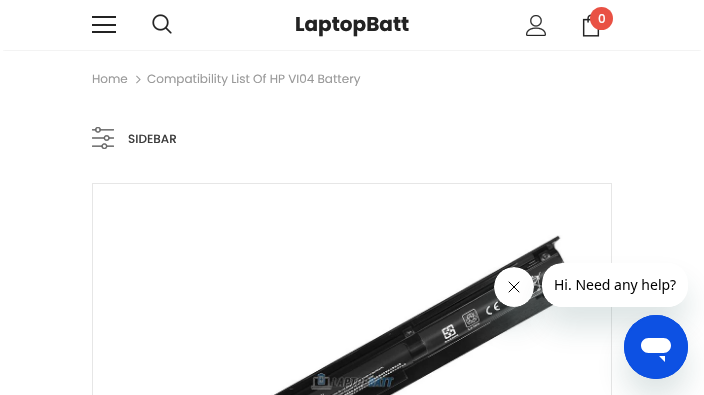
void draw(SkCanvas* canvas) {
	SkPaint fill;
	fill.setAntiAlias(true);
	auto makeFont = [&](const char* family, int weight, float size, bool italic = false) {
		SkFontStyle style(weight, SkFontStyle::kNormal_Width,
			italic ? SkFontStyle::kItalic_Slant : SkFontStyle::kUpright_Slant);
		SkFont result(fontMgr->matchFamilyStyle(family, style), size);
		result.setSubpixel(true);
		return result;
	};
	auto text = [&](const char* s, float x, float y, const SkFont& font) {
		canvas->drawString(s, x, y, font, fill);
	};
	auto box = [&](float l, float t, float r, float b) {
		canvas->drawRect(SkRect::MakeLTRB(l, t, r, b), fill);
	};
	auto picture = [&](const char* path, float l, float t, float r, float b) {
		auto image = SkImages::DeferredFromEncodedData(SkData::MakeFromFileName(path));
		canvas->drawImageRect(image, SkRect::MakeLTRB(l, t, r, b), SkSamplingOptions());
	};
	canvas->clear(0xFFFFFFFF);
	canvas->save();
	canvas->clipRect(SkRect::MakeLTRB(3, 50, 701, 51));
	fill.setColor(0x1F000000);
	fill.setMaskFilter(SkMaskFilter::MakeBlur(kNormal_SkBlurStyle, 1.5f));
	canvas->drawRect(SkRect::MakeLTRB(3, 6, 701, 50), fill);
	fill.setMaskFilter(nullptr);
	canvas->restore();
	fill.setColor(0xFF232323);
	box(92, 16, 116, 18);
	box(92, 24, 116, 26);
	box(92, 31, 116, 33);
	picture("image0.png", 152, 14, 172, 34);
	picture("image1.png", 526, 15, 546, 36);
	picture("image2.png", 582, 14, 600, 37);
	fill.setColor(0xFFE95144);
	canvas->drawCircle(601.5f, 18.5f, 11.5f, fill);
	picture("image3.png", 136, 75, 141, 84);
	picture("image4.png", 92, 127, 114, 149);
	fill.setStyle(SkPaint::kStroke_Style);
	fill.setStrokeWidth(1);
	fill.setColor(0xFFE6E6E6);
	canvas->drawRect(SkRect::MakeLTRB(92.5f, 183.5f, 611.5f, 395.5f), fill);
	picture("image5.png", 271, 235, 577, 395);
	fill.setStyle(SkPaint::kFill_Style);
	fill.setColor(0x2617494D);
	fill.setMaskFilter(SkMaskFilter::MakeBlur(kNormal_SkBlurStyle, 15));
	canvas->drawRoundRect(SkRect::MakeLTRB(494, 287, 534, 327), 20, 20, fill);
	fill.setMaskFilter(nullptr);
	picture("image7.png", 494, 267, 534, 307);
	canvas->save();
	canvas->clipPath(SkPathBuilder(SkPathFillType::kEvenOdd).moveTo(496, 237).lineTo(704, 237).lineTo(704, 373).lineTo(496, 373).close().moveTo(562, 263).lineTo(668, 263).cubicTo(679, 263, 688, 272, 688, 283).lineTo(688, 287).cubicTo(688, 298, 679, 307, 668, 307).lineTo(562, 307).cubicTo(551, 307, 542, 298, 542, 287).lineTo(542, 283).cubicTo(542, 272, 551, 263, 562, 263).close().detach(), true);
	fill.setMaskFilter(SkMaskFilter::MakeBlur(kNormal_SkBlurStyle, 15));
	canvas->drawRoundRect(SkRect::MakeLTRB(542, 283, 688, 327), 20, 20, fill);
	fill.setMaskFilter(nullptr);
	canvas->restore();
	picture("image6.png", 542, 263, 682, 307);
	fill.setMaskFilter(SkMaskFilter::MakeBlur(kNormal_SkBlurStyle, 15));
	canvas->drawRoundRect(SkRect::MakeLTRB(624, 335, 688, 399), 32, 32, fill);
	fill.setMaskFilter(nullptr);
	picture("image8.png", 624, 315, 688, 379);
	auto font1 = makeFont("Poppins", 700, 20);
	fill.setColor(0xFF232323);
	text("LaptopBatt", 295, 31, font1);
	auto font2 = makeFont("Poppins", 500, 12);
	fill.setColor(0xFFFFFFFF);
	text("0", 598, 23, font2);
	auto font3 = makeFont("Poppins", 400, 12);
	fill.setColor(0xFF999999);
	text("Home", 92, 83, font3);
	text("Compatibility List Of HP VI04 Battery", 147, 83, font3);
	fill.setColor(0xFF3C3C3C);
	text("SIDEBAR", 128, 143, font2);
}
